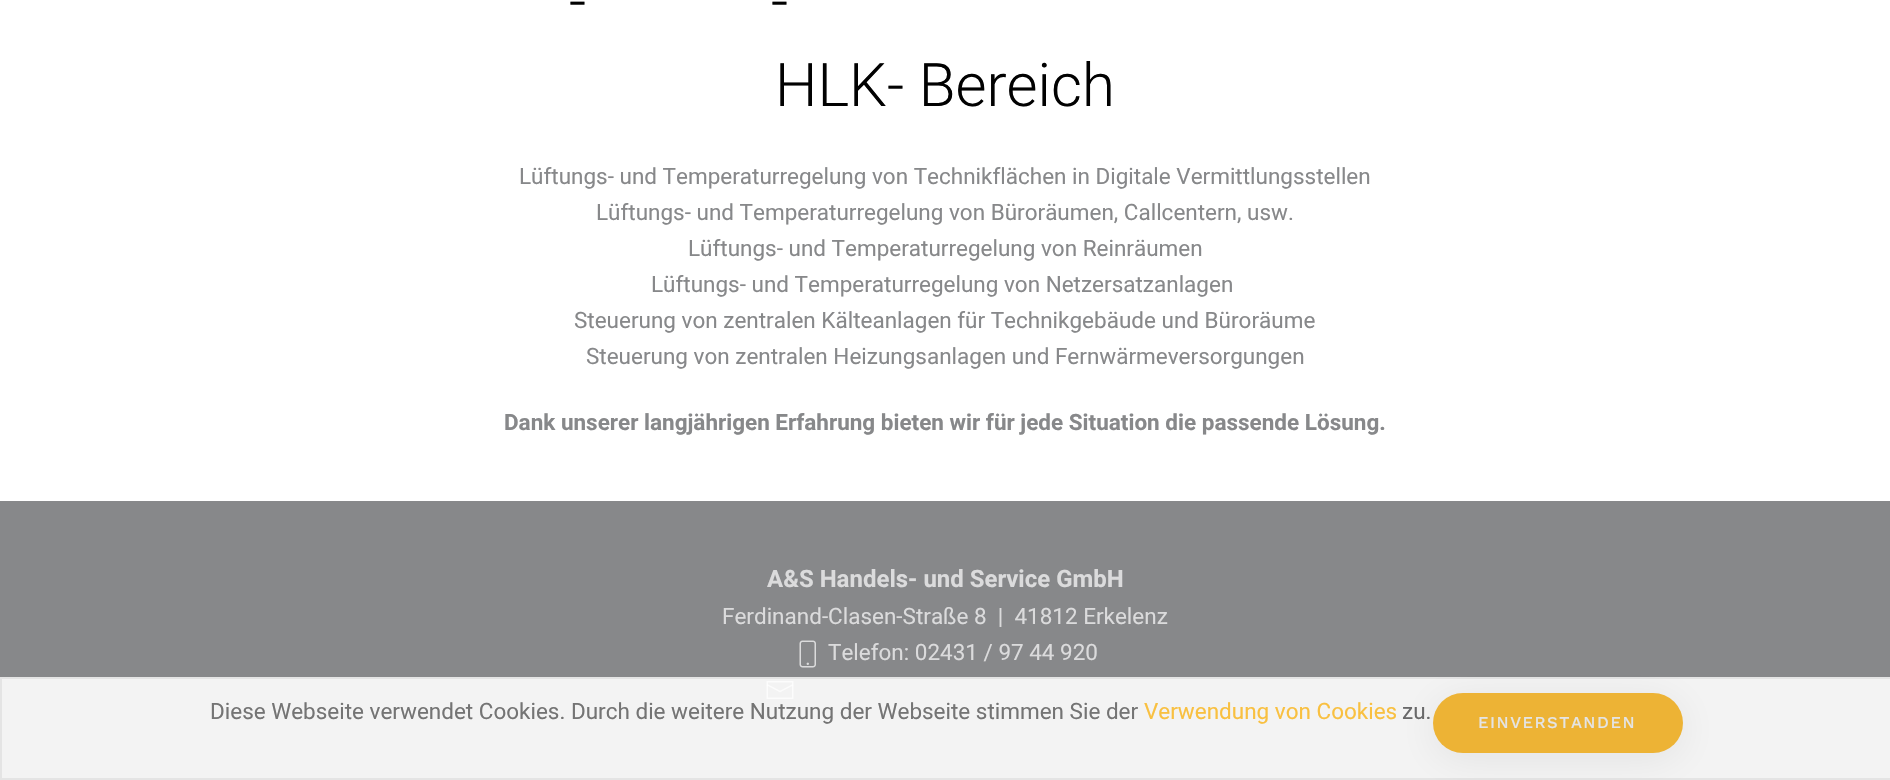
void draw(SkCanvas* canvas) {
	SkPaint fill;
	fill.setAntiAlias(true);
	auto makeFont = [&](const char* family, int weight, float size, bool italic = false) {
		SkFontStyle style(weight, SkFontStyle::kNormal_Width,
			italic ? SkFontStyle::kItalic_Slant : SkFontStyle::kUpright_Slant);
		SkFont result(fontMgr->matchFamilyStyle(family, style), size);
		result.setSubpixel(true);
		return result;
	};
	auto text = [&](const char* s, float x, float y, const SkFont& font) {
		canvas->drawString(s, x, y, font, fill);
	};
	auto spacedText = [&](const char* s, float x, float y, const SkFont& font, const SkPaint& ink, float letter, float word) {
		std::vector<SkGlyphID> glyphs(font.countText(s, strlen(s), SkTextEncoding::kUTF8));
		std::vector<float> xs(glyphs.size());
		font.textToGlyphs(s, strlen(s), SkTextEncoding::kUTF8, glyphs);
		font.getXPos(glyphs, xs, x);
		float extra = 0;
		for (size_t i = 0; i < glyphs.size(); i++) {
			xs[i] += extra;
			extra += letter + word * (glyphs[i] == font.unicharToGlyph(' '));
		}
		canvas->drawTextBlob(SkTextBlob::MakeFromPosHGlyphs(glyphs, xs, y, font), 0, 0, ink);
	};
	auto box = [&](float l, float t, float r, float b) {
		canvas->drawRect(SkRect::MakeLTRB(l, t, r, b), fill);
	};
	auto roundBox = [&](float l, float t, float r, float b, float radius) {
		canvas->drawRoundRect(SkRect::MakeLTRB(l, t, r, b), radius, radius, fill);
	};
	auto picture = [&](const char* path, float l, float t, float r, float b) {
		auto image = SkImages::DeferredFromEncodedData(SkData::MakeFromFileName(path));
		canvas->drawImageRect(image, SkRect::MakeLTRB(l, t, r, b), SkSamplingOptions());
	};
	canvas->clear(0xFFFFFFFF);
	fill.setColor(0xFF87888A);
	box(0, 501, 1890, 677);
	fill.setColor(0xFFF3F3F3);
	box(2, 679, 1890, 778);
	picture("image0.png", 799, 640, 816, 668);
	picture("image1.png", 766, 681, 794, 699);
	fill.setStyle(SkPaint::kStroke_Style);
	fill.setStrokeWidth(2);
	fill.setColor(0xFFE4E4E4);
	canvas->drawRect(SkRect::MakeLTRB(1, 678, 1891, 779), fill);
	fill.setStyle(SkPaint::kFill_Style);
	fill.setColor(0x120E0E0E);
	fill.setMaskFilter(SkMaskFilter::MakeBlur(kNormal_SkBlurStyle, 21));
	canvas->drawRoundRect(SkRect::MakeLTRB(1433, 699, 1683, 759), 30, 30, fill);
	fill.setMaskFilter(nullptr);
	fill.setColor(0xFFEDB335);
	roundBox(1433, 693, 1683, 753, 30);
	auto font1 = makeFont("Roboto", 300, 60);
	fill.setColor(0xFF010101);
	text("-", 569, 22, font1);
	text("-", 771, 22, font1);
	text("HLK- Bereich", 775, 106, font1);
	auto font2 = makeFont("Roboto", 400, 22.5f);
	fill.setColor(0xFF87888A);
	text("Lüftungs- und Temperaturregelung von Technikflächen in Digitale Vermittlungsstellen", 519, 184, font2);
	text("Lüftungs- und Temperaturregelung von Büroräumen, Callcentern, usw.", 596, 220, font2);
	text("Lüftungs- und Temperaturregelung von Reinräumen", 688, 256, font2);
	text("Lüftungs- und Temperaturregelung von Netzersatzanlagen", 651, 292, font2);
	text("Steuerung von zentralen Kälteanlagen für Technikgebäude und Büroräume", 574, 328, font2);
	text("Steuerung von zentralen Heizungsanlagen und Fernwärmeversorgungen", 586, 364, font2);
	auto font3 = makeFont("Roboto", 700, 22.5f);
	text("Dank unserer langjährigen Erfahrung bieten wir für jede Situation die passende Lösung.", 504, 430, font3);
	auto font4 = makeFont("Roboto", 700, 24);
	fill.setColor(0xFFDBDBDC);
	text("A&S Handels- und Service GmbH", 767, 587, font4);
	text("Ferdinand-Clasen-Straße 8  |  41812 Erkelenz", 722, 624, font2);
	text("Telefon: 02431 / 97 44 920", 828, 660, font2);
	fill.setColor(0xFF747474);
	text("Diese Webseite verwendet Cookies. Durch die weitere Nutzung der Webseite stimmen Sie der", 210, 719, font2);
	fill.setColor(0xFFF9C040);
	text("Verwendung von Cookies", 1144, 719, font2);
	fill.setColor(0xFF69696A);
	text("zu.", 1402, 719, font2);
	auto font5 = makeFont("Work Sans", 500, 16.5f);
	fill.setColor(0xFFE4E4E4);
	spacedText("EINVERSTANDEN", 1478, 728, font5, fill, 1.5f, 0);
}
